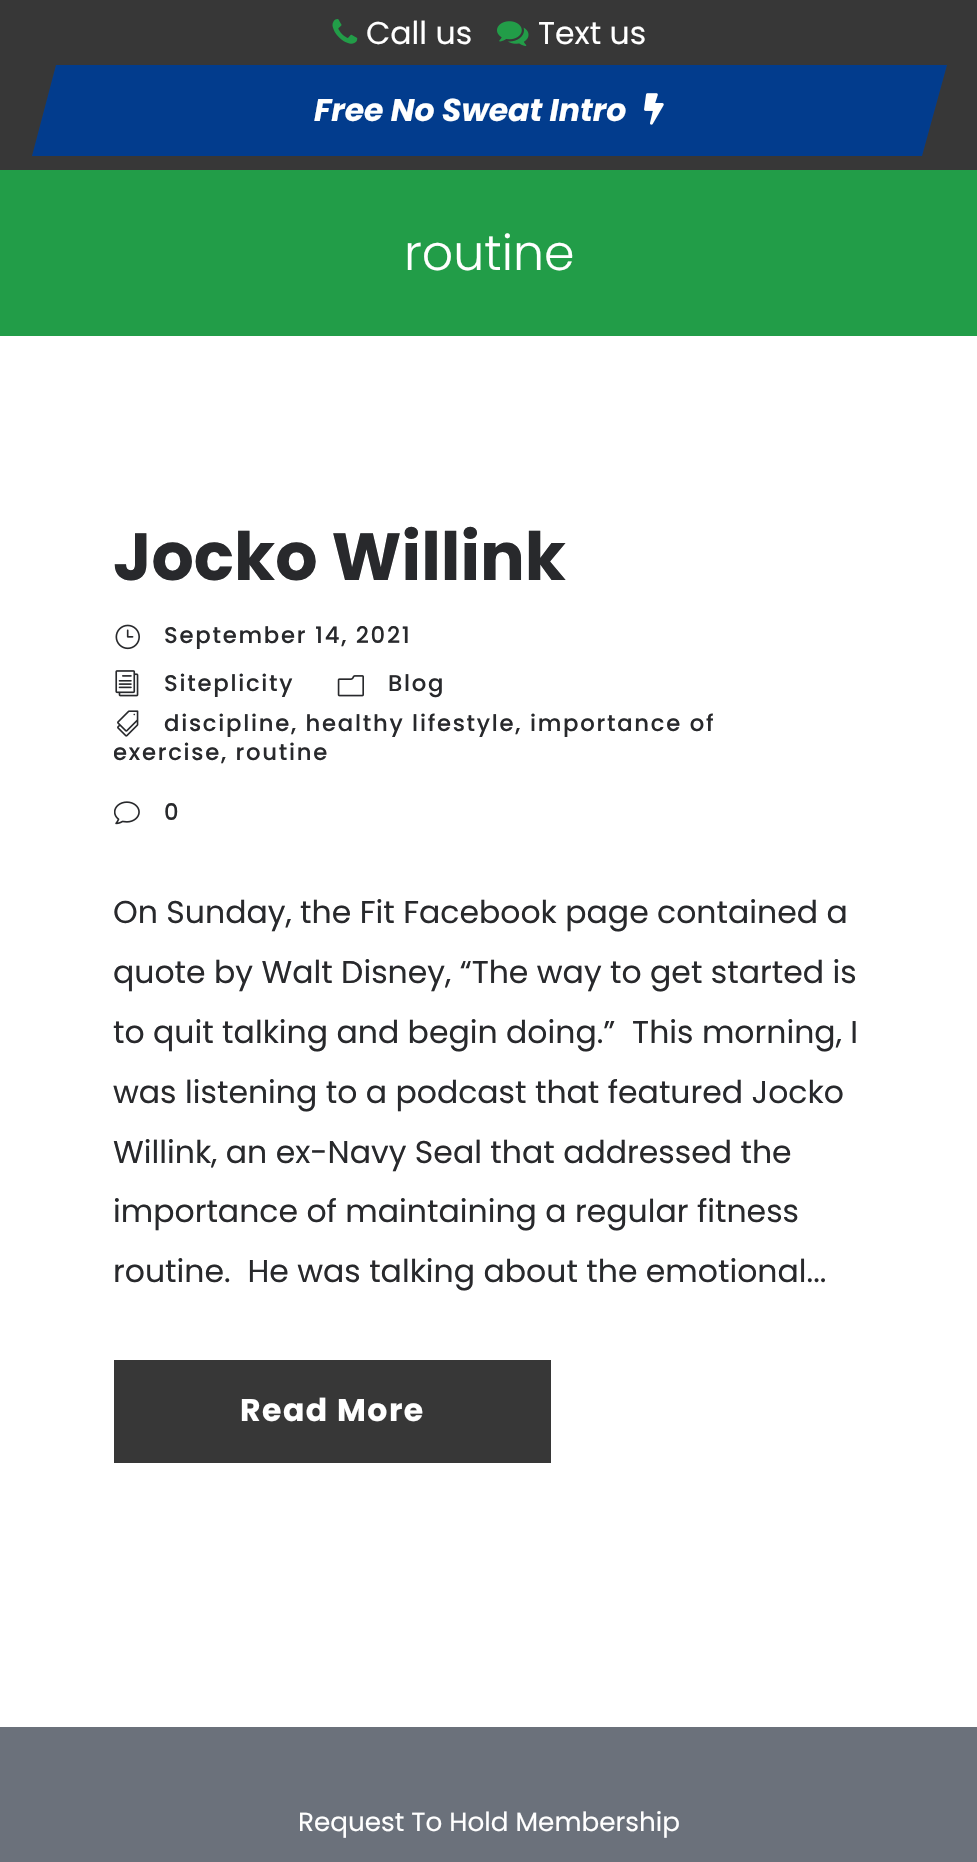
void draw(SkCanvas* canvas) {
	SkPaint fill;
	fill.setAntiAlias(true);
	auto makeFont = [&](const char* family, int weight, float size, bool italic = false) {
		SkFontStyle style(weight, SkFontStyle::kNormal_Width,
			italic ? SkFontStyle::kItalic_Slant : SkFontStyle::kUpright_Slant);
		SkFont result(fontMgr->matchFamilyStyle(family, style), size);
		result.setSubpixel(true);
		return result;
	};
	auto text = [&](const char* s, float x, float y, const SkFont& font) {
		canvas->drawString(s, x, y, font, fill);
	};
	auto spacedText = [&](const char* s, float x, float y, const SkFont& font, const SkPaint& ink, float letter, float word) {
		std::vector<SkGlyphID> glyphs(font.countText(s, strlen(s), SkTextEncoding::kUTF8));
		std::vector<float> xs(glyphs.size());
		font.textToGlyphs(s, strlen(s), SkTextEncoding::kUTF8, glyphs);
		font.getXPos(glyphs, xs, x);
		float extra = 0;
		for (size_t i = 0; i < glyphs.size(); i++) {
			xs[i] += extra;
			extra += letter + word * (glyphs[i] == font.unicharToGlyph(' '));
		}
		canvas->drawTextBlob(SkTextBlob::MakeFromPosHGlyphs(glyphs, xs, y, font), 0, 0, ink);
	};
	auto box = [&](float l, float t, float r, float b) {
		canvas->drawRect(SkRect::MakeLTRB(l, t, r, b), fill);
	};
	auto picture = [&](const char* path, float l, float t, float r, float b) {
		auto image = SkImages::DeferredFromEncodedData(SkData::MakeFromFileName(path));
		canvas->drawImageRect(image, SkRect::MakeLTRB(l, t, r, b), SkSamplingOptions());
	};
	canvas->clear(0xFFFFFFFF);
	fill.setColor(0xFF373737);
	box(0, 0, 977, 170);
	picture("image0.png", 332, 19, 358, 44);
	picture("image1.png", 497, 21, 529, 46);
	{
		const SkColor colors[] = {0xFF229D48, 0xFF686868, 0xFF023C8D, 0xFF023C8D};
		const float stops[] = {0, 0.5f, 0.5f, 1};
		const SkPoint ends[] = {{-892, 110}, {935, 110}};
		fill.setShader(SkGradientShader::MakeLinear(ends, colors, stops, 4, SkTileMode::kClamp));
		fill.setAlpha(255);
	}
	canvas->drawPath(SkPathBuilder().moveTo(56, 65).lineTo(947, 65).lineTo(922, 156).lineTo(32, 156).close().detach(), fill);
	picture("image2.png", 644, 93, 664, 125);
	fill.setShader(nullptr);
	fill.setColor(0xFF229D48);
	box(0, 170, 977, 336);
	picture("image3.png", 115, 624, 140, 650);
	picture("image4.png", 115, 670, 139, 697);
	picture("image5.png", 337, 675, 364, 697);
	picture("image6.png", 117, 710, 139, 737);
	picture("image7.png", 114, 801, 140, 825);
	fill.setColor(0xFF373737);
	box(114, 1360, 551, 1463);
	fill.setColor(0xFF6B717B);
	box(0, 1727, 977, 1862);
	auto font1 = makeFont("Poppins", 400, 31.5f);
	fill.setColor(0xFFFFFFFF);
	text("Call us", 366, 44, font1);
	text("Text us", 538, 44, font1);
	auto font2 = makeFont("Poppins", 700, 31.5f, true);
	text("Free No Sweat Intro", 314, 121, font2);
	auto font3 = makeFont("Poppins", 300, 49);
	text("routine", 404, 270, font3);
	auto font4 = makeFont("Poppins", 700, 66.5f);
	fill.setColor(0xFF28292C);
	text("Jocko Willink", 113, 580, font4);
	auto font5 = makeFont("Poppins", 500, 22.75f);
	spacedText("September 14, 2021", 164, 643, font5, fill, 1.75f, 0);
	spacedText("Siteplicity", 164, 691, font5, fill, 1.75f, 0);
	spacedText("Blog", 388, 691, font5, fill, 1.75f, 0);
	spacedText("discipline, healthy lifestyle, importance of", 164, 731, font5, fill, 1.75f, 0);
	canvas->save();
	canvas->clipRect(SkRect::MakeLTRB(114, 518, 866, 840));
	spacedText("exercise", 113, 760, font5, fill, 1.75f, 0);
	canvas->restore();
	spacedText(", routine", 221, 760, font5, fill, 1.75f, 0);
	spacedText("0", 164, 820, font5, fill, 1.75f, 0);
	text("On Sunday, the Fit Facebook page contained a", 113, 923, font1);
	text("quote by Walt Disney, “The way to get started is", 113, 983, font1);
	text("to quit talking and begin doing.”  This morning, I", 113, 1043, font1);
	text("was listening to a podcast that featured Jocko", 113, 1103, font1);
	text("Willink, an ex-Navy Seal that addressed the", 113, 1163, font1);
	text("importance of maintaining a regular fitness", 113, 1222, font1);
	text("routine.  He was talking about the emotional...", 113, 1282, font1);
	auto font6 = makeFont("Poppins", 700, 31.5f);
	fill.setColor(0xFFFFFFFF);
	spacedText("Read More", 240, 1421, font6, fill, 1.5f, 0);
	auto font7 = makeFont("Poppins", 400, 26.25f);
	text("Request To Hold Membership", 298, 1831, font7);
}
